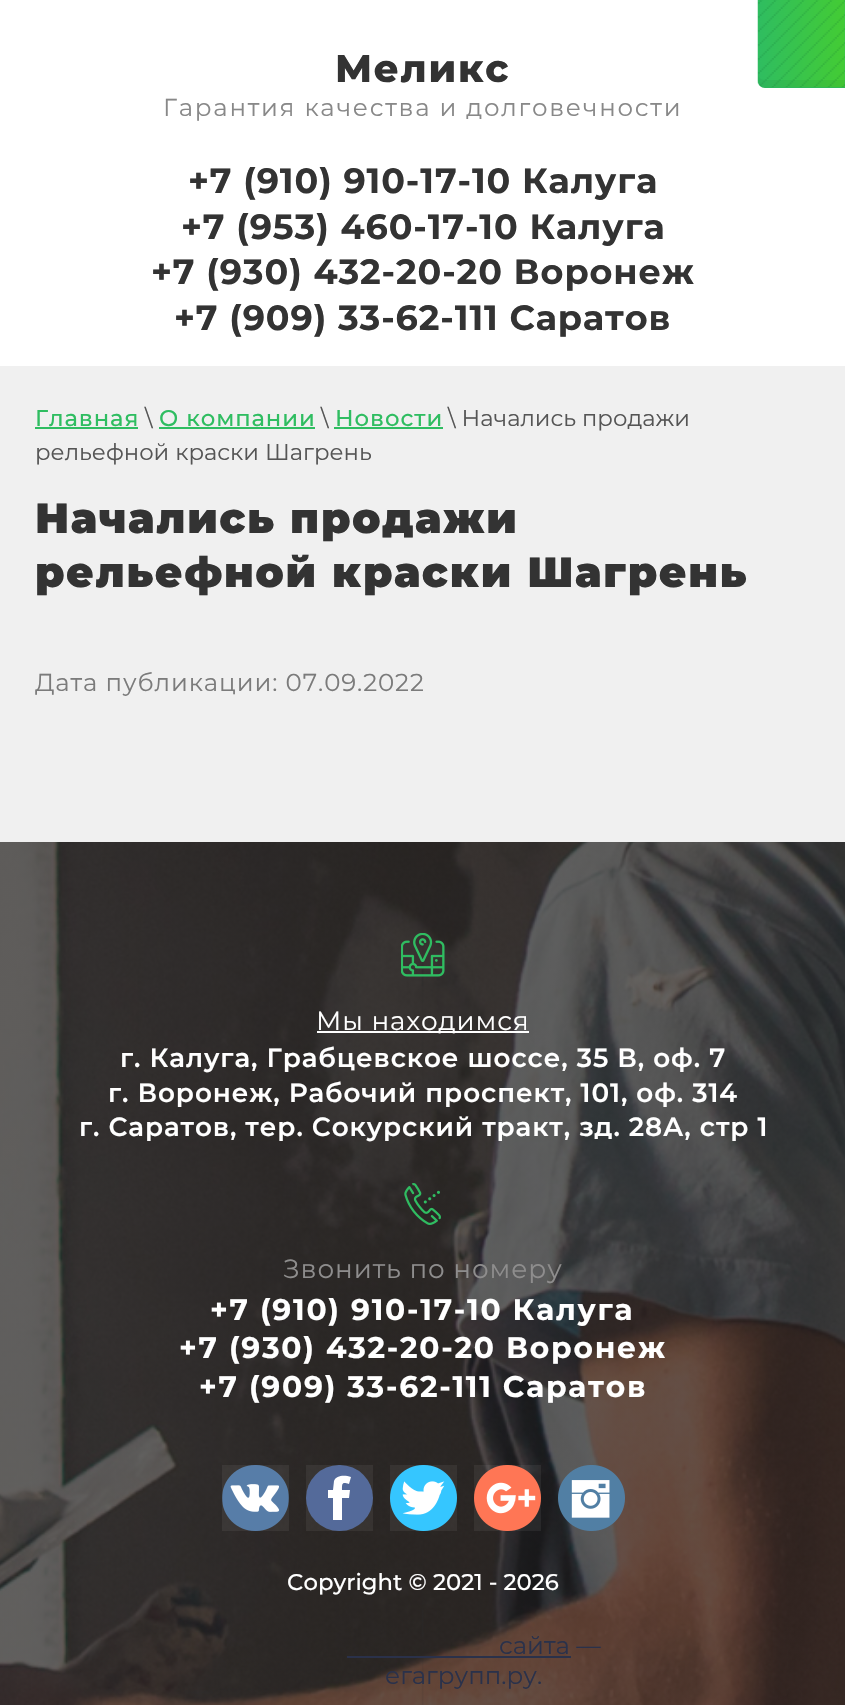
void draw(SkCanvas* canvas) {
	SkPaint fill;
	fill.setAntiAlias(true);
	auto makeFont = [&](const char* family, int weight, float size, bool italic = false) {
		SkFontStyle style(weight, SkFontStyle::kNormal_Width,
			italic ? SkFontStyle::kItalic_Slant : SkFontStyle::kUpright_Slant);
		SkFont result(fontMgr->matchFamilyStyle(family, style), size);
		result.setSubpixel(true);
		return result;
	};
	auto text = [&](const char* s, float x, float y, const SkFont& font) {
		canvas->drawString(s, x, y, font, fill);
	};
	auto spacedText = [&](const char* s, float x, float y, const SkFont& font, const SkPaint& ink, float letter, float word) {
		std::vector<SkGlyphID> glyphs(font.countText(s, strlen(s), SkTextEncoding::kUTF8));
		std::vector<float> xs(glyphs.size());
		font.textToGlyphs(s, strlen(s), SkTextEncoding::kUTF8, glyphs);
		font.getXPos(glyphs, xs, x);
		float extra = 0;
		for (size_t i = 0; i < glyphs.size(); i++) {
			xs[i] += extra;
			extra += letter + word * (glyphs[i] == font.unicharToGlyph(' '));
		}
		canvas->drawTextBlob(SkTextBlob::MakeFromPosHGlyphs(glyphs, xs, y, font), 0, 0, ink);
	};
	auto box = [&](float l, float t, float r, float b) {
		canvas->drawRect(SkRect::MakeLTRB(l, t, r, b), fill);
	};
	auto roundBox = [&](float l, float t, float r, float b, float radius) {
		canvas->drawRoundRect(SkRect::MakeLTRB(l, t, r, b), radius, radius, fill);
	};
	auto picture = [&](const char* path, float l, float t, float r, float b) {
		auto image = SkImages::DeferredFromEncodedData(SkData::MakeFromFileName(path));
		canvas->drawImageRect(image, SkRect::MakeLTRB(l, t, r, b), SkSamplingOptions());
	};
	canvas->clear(0xFFF0F0F0);
	fill.setColor(0xFFFFFFFF);
	box(0, 0, 845, 366);
	fill.setColor(0xFF2FBD61);
	canvas->drawPath(SkPathBuilder().moveTo(758, 0).lineTo(845, 0).lineTo(845, 88).lineTo(765, 88).cubicTo(761, 88, 758, 85, 758, 81).close().detach(), fill);
	picture("image0.png", 757, 0, 845, 88);
	fill.setColor(0x0A000000);
	canvas->drawPath(SkPathBuilder().moveTo(758, 74).lineTo(758, 81).cubicTo(758, 85, 761, 88, 765, 88).lineTo(845, 88).lineTo(845, 80).lineTo(765, 80).cubicTo(761, 80, 758, 77, 758, 74).close().detach(), fill);
	fill.setColor(0xFF2FBD61);
	box(35, 427, 138, 429);
	box(159, 427, 315, 429);
	box(334, 427, 443, 429);
	picture("image1.png", 0, 842, 845, 1705);
	picture("image2.png", 401, 933, 445, 977);
	fill.setColor(0xFFFFFFFF);
	box(317, 1031, 529, 1033);
	picture("image3.png", 404, 1183, 441, 1225);
	picture("image4.png", 222, 1465, 289, 1531);
	fill.setColor(0x0FFFFFFF);
	box(222, 1465, 289, 1531);
	fill.setColor(0xFF496194);
	roundBox(306, 1465, 373, 1531, 33);
	fill.setColor(0xFFFFFFFF);
	canvas->drawPath(SkPathBuilder(SkPathFillType::kEvenOdd).moveTo(351, 1477).cubicTo(345, 1475, 336, 1475, 334, 1481).lineTo(333, 1490).lineTo(328, 1490).lineTo(328, 1498).lineTo(333, 1498).lineTo(333, 1520).lineTo(342, 1520).lineTo(342, 1498).lineTo(349, 1498).lineTo(350, 1490).lineTo(342, 1490).cubicTo(342, 1483, 342, 1482, 349, 1484).close().detach(), fill);
	fill.setColor(0x0FFFFFFF);
	box(306, 1465, 373, 1531);
	picture("image5.png", 390, 1465, 457, 1531);
	box(390, 1465, 457, 1531);
	picture("image6.png", 474, 1465, 541, 1531);
	box(474, 1465, 541, 1531);
	picture("image7.png", 558, 1465, 625, 1531);
	fill.setColor(0xFF2A314A);
	box(347, 1656, 571, 1658);
	auto font1 = makeFont("Montserrat", 800, 38.5f);
	fill.setColor(0xFF333333);
	spacedText("Меликс", 335, 82, font1, fill, 1.75f, 0);
	auto font2 = makeFont("Montserrat", 400, 24.5f);
	fill.setColor(0xFF888888);
	spacedText("Гарантия качества и долговечности", 163, 116, font2, fill, 1.75f, 0);
	auto font3 = makeFont("Montserrat", 700, 35);
	fill.setColor(0xFF333333);
	spacedText("+7 (910) 910-17-10 Калуга", 188, 193, font3, fill, 0.9f, 0);
	spacedText("+7 (953) 460-17-10 Калуга", 181, 239, font3, fill, 0.9f, 0);
	spacedText("+7 (930) 432-20-20 Воронеж", 151, 284, font3, fill, 0.9f, 0);
	spacedText("+7 (909) 33-62-111 Саратов", 174, 330, font3, fill, 0.9f, 0);
	auto font4 = makeFont("Montserrat", 500, 22.75f);
	fill.setColor(0xFF2FBD61);
	spacedText("Главная", 35, 426, font4, fill, 0.9f, 0);
	auto font5 = makeFont("Montserrat", 400, 22.75f);
	fill.setColor(0xFF555555);
	text("\\", 145, 426, font5);
	fill.setColor(0xFF2FBD61);
	spacedText("О компании", 159, 426, font4, fill, 0.9f, 0);
	fill.setColor(0xFF555555);
	text("\\", 321, 426, font5);
	fill.setColor(0xFF2FBD61);
	spacedText("Новости", 335, 426, font4, fill, 0.9f, 0);
	fill.setColor(0xFF555555);
	text("\\ Начались продажи", 448, 426, font5);
	text("рельефной краски Шагрень", 35, 460, font5);
	auto font6 = makeFont("Montserrat", 900, 42);
	fill.setColor(0xFF333333);
	spacedText("Начались продажи", 35, 533, font6, fill, 1.75f, 0);
	spacedText("рельефной краски Шагрень", 35, 587, font6, fill, 1.75f, 0);
	fill.setColor(0xFF7B7B7B);
	spacedText("Дата публикации: 07.09.2022", 35, 691, font2, fill, 0.9f, 0);
	auto font7 = makeFont("Montserrat", 400, 26.25f);
	fill.setColor(0xFFFFFFFF);
	spacedText("Мы находимся", 316, 1030, font7, fill, 0.9f, 0);
	auto font8 = makeFont("Montserrat", 600, 26.25f);
	spacedText("г. Калуга, Грабцевское шоссе, 35 В, оф. 7", 120, 1067, font8, fill, 0.9f, 0);
	spacedText("г. Воронеж, Рабочий проспект, 101, оф. 314", 108, 1102, font8, fill, 0.9f, 0);
	spacedText("г. Саратов, тер. Сокурский тракт, зд. 28А, стр 1", 79, 1136, font8, fill, 0.9f, 0);
	fill.setColor(0xFF8E8D8D);
	spacedText("Звонить по номеру", 283, 1278, font7, fill, 0.9f, 0);
	auto font9 = makeFont("Montserrat", 700, 29.75f);
	fill.setColor(0xFFFFFFFF);
	spacedText("+7 (910) 910-17-10 Калуга", 210, 1320, font9, fill, 1.75f, 0);
	spacedText("+7 (930) 432-20-20 Воронеж", 179, 1358, font9, fill, 1.75f, 0);
	spacedText("+7 (909) 33-62-111 Саратов", 199, 1397, font9, fill, 1.75f, 0);
	text("Copyright © 2021 - 2026", 287, 1590, font4);
	fill.setColor(0xFF2A314A);
	text("сайта —", 499, 1654, font2);
	text("егагрупп.ру.", 385, 1684, font2);
}
